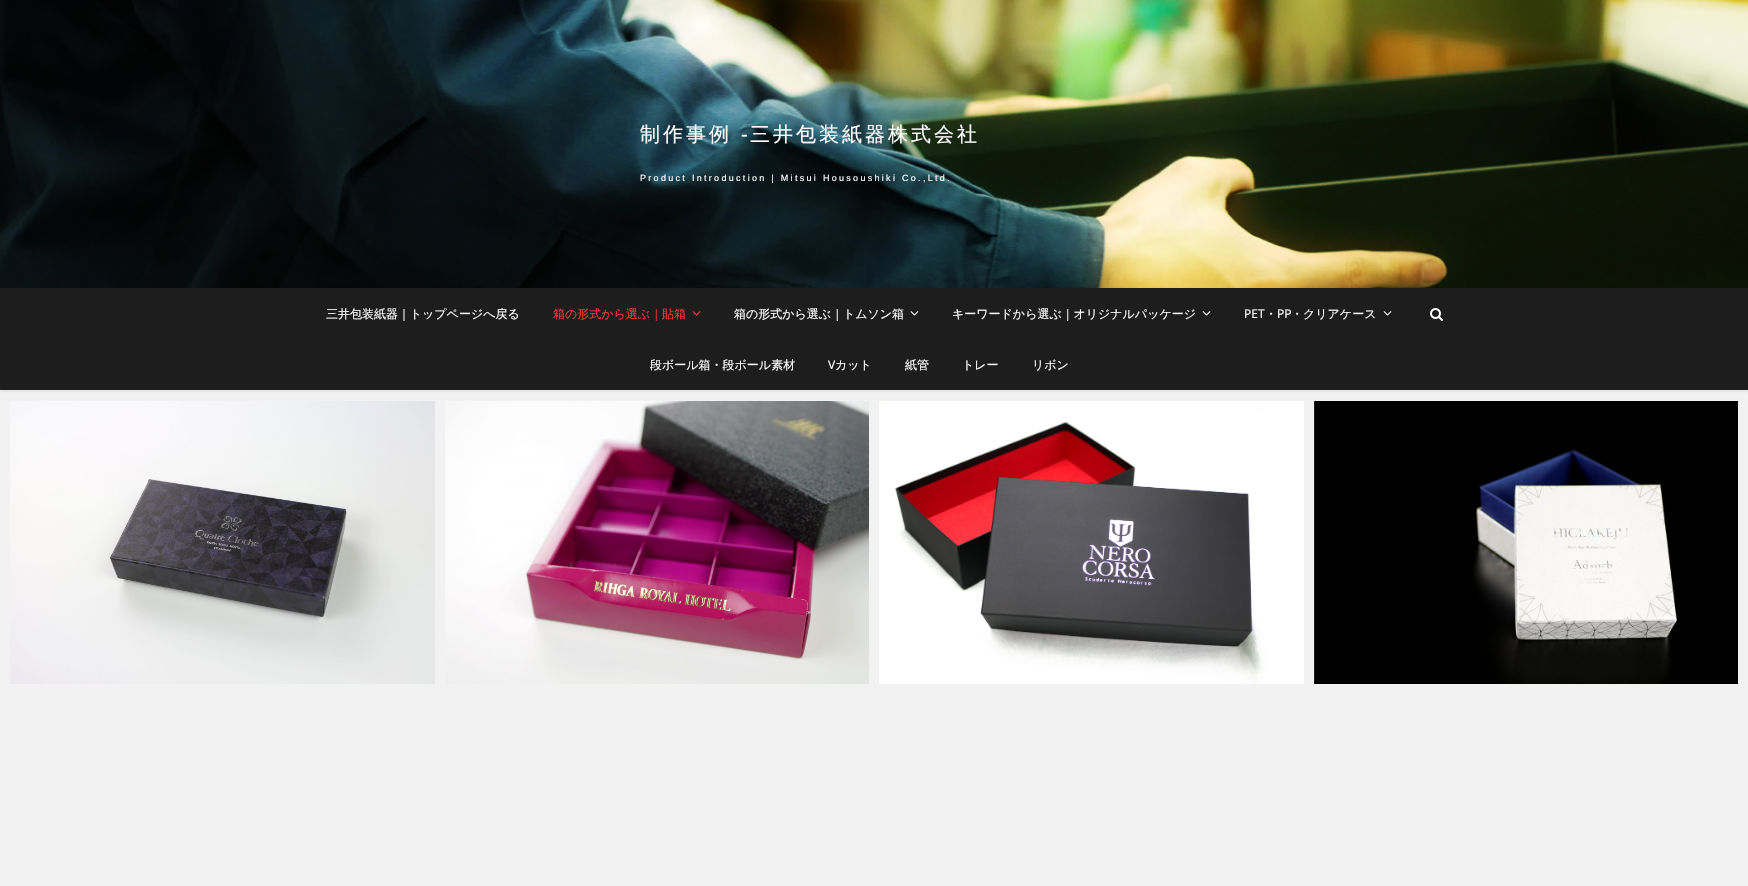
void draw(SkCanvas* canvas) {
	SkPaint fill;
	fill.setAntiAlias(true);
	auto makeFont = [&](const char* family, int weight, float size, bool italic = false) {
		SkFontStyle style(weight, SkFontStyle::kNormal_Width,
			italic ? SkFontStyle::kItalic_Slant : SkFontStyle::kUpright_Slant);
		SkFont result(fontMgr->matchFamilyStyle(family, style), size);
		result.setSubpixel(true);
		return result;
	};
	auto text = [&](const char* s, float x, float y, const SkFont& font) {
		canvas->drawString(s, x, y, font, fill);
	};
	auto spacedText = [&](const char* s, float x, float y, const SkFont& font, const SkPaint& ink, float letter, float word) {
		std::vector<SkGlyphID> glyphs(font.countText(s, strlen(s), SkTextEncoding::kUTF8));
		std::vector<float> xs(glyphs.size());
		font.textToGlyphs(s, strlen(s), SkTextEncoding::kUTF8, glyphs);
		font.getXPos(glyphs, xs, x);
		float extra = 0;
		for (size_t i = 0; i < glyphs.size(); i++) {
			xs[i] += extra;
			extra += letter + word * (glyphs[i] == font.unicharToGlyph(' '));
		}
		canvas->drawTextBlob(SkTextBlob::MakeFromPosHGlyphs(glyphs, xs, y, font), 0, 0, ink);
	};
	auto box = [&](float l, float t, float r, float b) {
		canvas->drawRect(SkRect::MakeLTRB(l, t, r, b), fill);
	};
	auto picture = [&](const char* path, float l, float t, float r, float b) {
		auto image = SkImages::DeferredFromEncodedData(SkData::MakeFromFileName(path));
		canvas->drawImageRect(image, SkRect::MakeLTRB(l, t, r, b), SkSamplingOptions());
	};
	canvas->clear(0xFFFFFFFF);
	picture("image0.png", 0, 0, 1748, 288);
	fill.setColor(0xFFF2F2F2);
	box(0, 391, 1748, 886);
	fill.setColor(0x26000000);
	fill.setMaskFilter(SkMaskFilter::MakeBlur(kNormal_SkBlurStyle, 1));
	canvas->drawRect(SkRect::MakeLTRB(0, 289, 1748, 391), fill);
	fill.setMaskFilter(nullptr);
	fill.setColor(0xFF1D1D1D);
	box(0, 288, 1748, 390);
	picture("image1.png", 692, 311, 701, 316);
	picture("image2.png", 910, 311, 919, 316);
	picture("image2.png", 1202, 311, 1211, 316);
	picture("image2.png", 1383, 311, 1392, 316);
	picture("image3.png", 1430, 308, 1443, 321);
	picture("image4.png", 10, 401, 435, 684);
	picture("image5.png", 445, 401, 869, 684);
	picture("image6.png", 879, 401, 1304, 684);
	picture("image7.png", 1314, 401, 1738, 684);
	auto font1 = makeFont("WenQuanYi Zen Hei", 500, 20);
	fill.setColor(0xFFFFFFFF);
	spacedText("制作事例", 640, 141, font1, fill, 3, 0);
	auto font2 = makeFont("Liberation Sans", 400, 20);
	spacedText("-", 741, 141, font2, fill, 3, 0);
	spacedText("三井包装紙器株式会社", 750, 141, font1, fill, 3, 0);
	auto font3 = makeFont("Liberation Sans", 400, 9);
	spacedText("Product Introduction | Mitsui Housoushiki Co.,Ltd.", 640, 181, font3, fill, 2.3f, 0);
	auto font4 = makeFont("WenQuanYi Zen Hei", 500, 12);
	text("三井包装紙器｜トップページへ戻る", 326, 318, font4);
	fill.setColor(0xFFFF3838);
	text("箱の形式から選ぶ｜貼箱", 553, 318, font4);
	fill.setColor(0xFFFFFFFF);
	text("箱の形式から選ぶ｜トムソン箱", 734, 318, font4);
	text("キーワードから選ぶ｜オリジナルパッケージ", 952, 318, font4);
	auto font5 = makeFont("Open Sans", 400, 12);
	text("PET", 1244, 318, font5);
	text("・", 1265, 318, font4);
	text("PP", 1277, 318, font5);
	text("・クリアケース", 1291, 318, font4);
	text("段ボール箱・段ボール素材", 650, 369, font4);
	text("V", 828, 369, font5);
	text("カット", 835, 369, font4);
	text("紙管", 905, 369, font4);
	text("トレー", 962, 369, font4);
	text("リボン", 1032, 369, font4);
}
